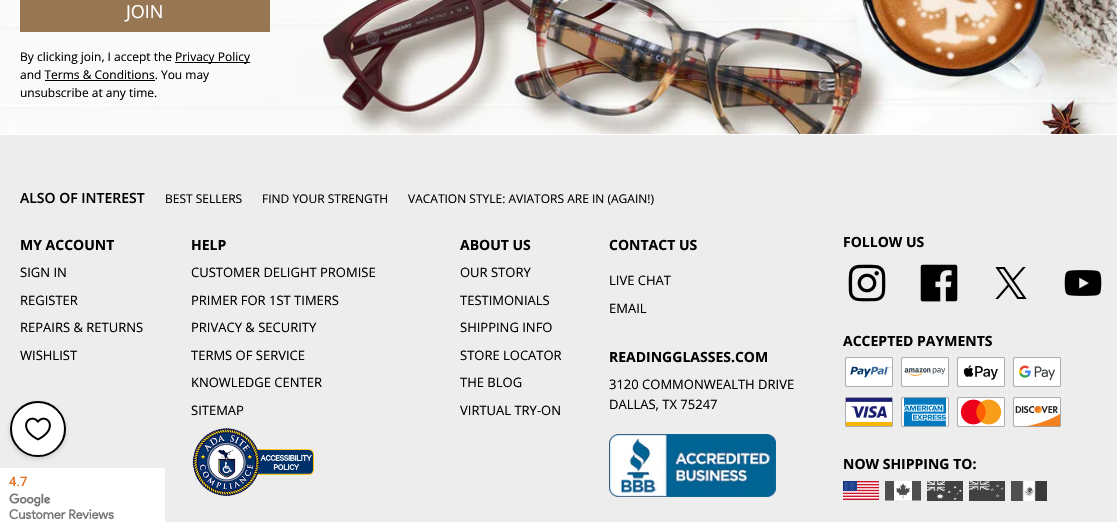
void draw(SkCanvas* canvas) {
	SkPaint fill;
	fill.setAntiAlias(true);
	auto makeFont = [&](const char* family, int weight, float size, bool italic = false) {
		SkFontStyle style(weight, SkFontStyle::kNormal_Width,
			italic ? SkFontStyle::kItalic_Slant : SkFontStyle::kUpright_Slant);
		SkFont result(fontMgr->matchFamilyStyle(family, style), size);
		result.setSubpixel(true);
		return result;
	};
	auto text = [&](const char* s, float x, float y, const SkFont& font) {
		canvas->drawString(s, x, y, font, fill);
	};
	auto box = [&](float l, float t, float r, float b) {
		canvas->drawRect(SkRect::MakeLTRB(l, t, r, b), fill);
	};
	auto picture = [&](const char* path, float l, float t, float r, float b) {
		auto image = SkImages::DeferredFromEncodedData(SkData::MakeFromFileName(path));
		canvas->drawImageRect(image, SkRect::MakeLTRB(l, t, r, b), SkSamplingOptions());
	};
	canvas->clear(0xFFEEEDEE);
	picture("image0.png", 0, 0, 1117, 134);
	fill.setColor(0xFF977654);
	box(20, 0, 270, 32);
	fill.setColor(0xFF000000);
	box(175, 62, 250, 63);
	box(45, 80, 155, 81);
	fill.setColor(0xFFFFFFFF);
	box(0, 134, 1117, 135);
	picture("image1.png", 192, 428, 314, 496);
	picture("image2.png", 609, 434, 776, 497);
	picture("image3.png", 848, 264, 886, 302);
	picture("image4.png", 920, 264, 958, 302);
	picture("image5.png", 995, 267, 1027, 299);
	picture("image6.png", 1064, 270, 1102, 296);
	picture("image7.png", 845, 357, 893, 387);
	picture("image8.png", 901, 357, 949, 387);
	picture("image9.png", 957, 357, 1005, 387);
	picture("image10.png", 1013, 357, 1061, 387);
	picture("image11.png", 845, 397, 893, 427);
	picture("image12.png", 901, 397, 949, 427);
	picture("image13.png", 957, 397, 1005, 427);
	picture("image14.png", 1013, 397, 1061, 427);
	picture("image15.png", 843, 481, 879, 500);
	picture("image16.png", 885, 481, 921, 501);
	picture("image17.png", 927, 481, 963, 501);
	picture("image18.png", 969, 481, 1005, 501);
	picture("image19.png", 1011, 481, 1047, 501);
	fill.setColor(0x26000000);
	fill.setMaskFilter(SkMaskFilter::MakeBlur(kNormal_SkBlurStyle, 2));
	canvas->drawRoundRect(SkRect::MakeLTRB(10, 403, 66, 459), 28, 28, fill);
	fill.setMaskFilter(nullptr);
	fill.setColor(0xFFFFFFFF);
	canvas->drawCircle(38, 429, 27, fill);
	fill.setStyle(SkPaint::kStroke_Style);
	fill.setStrokeWidth(2);
	fill.setColor(0xFF000000);
	canvas->drawCircle(38, 429, 27, fill);
	picture("image20.png", 25, 417, 51, 441);
	fill.setStyle(SkPaint::kFill_Style);
	fill.setColor(0xFFFFFFFF);
	box(0, 468, 165, 522);
	picture("image21.png", 9, 493, 114, 520);
	auto font1 = makeFont("Open Sans", 400, 18);
	text("JOIN", 126, 18, font1);
	auto font2 = makeFont("Open Sans", 400, 12);
	fill.setColor(0xFF000000);
	text("By clicking join, I accept the", 20, 61, font2);
	text("Privacy Policy", 175, 61, font2);
	text("and Terms & Conditions. You may", 20, 79, font2);
	text("unsubscribe at any time.", 20, 97, font2);
	auto font3 = makeFont("Open Sans", 600, 14);
	text("ALSO OF INTEREST", 20, 203, font3);
	text("BEST SELLERS", 165, 203, font2);
	text("FIND YOUR STRENGTH", 262, 203, font2);
	text("VACATION STYLE: AVIATORS ARE IN (AGAIN!)", 408, 203, font2);
	auto font4 = makeFont("Open Sans", 700, 14);
	text("MY ACCOUNT", 20, 250, font4);
	auto font5 = makeFont("Open Sans", 400, 13);
	text("SIGN IN", 20, 277, font5);
	text("REGISTER", 20, 305, font5);
	text("REPAIRS & RETURNS", 20, 332, font5);
	text("WISHLIST", 20, 360, font5);
	text("HELP", 191, 250, font4);
	text("CUSTOMER DELIGHT PROMISE", 191, 277, font5);
	text("PRIMER FOR 1ST TIMERS", 191, 305, font5);
	text("PRIVACY & SECURITY", 191, 332, font5);
	text("TERMS OF SERVICE", 191, 360, font5);
	text("KNOWLEDGE CENTER", 191, 387, font5);
	text("SITEMAP", 191, 415, font5);
	text("ABOUT US", 460, 250, font4);
	text("OUR STORY", 460, 277, font5);
	text("TESTIMONIALS", 460, 305, font5);
	text("SHIPPING INFO", 460, 332, font5);
	text("STORE LOCATOR", 460, 360, font5);
	text("THE BLOG", 460, 387, font5);
	text("VIRTUAL TRY-ON", 460, 415, font5);
	text("CONTACT US", 609, 250, font4);
	text("LIVE CHAT", 609, 285, font5);
	text("EMAIL", 609, 313, font5);
	text("READINGGLASSES.COM", 609, 362, font4);
	text("3120 COMMONWEALTH DRIVE", 609, 389, font5);
	text("DALLAS, TX 75247", 609, 409, font5);
	text("FOLLOW US", 843, 247, font4);
	text("ACCEPTED PAYMENTS", 843, 346, font4);
	text("NOW SHIPPING TO:", 843, 469, font4);
	auto font6 = makeFont("Roboto", 500, 13);
	fill.setColor(0xFFE57125);
	text("4.7", 9, 486, font6);
}
